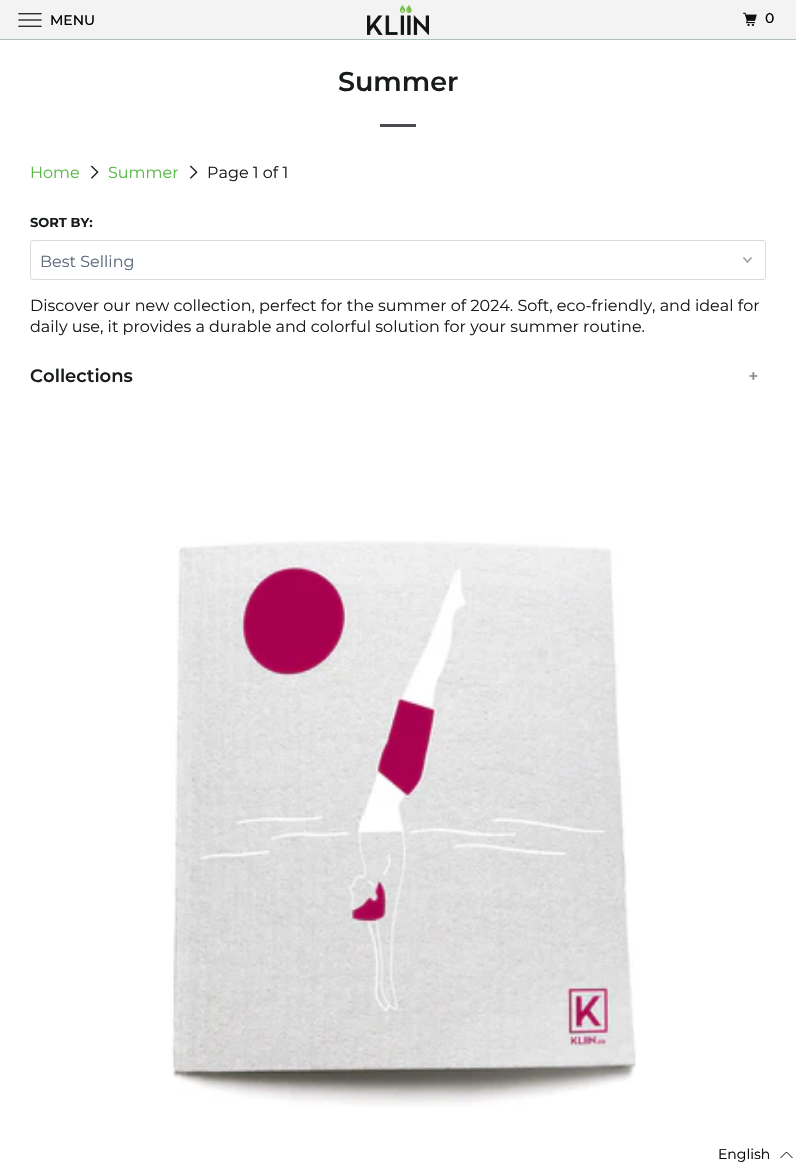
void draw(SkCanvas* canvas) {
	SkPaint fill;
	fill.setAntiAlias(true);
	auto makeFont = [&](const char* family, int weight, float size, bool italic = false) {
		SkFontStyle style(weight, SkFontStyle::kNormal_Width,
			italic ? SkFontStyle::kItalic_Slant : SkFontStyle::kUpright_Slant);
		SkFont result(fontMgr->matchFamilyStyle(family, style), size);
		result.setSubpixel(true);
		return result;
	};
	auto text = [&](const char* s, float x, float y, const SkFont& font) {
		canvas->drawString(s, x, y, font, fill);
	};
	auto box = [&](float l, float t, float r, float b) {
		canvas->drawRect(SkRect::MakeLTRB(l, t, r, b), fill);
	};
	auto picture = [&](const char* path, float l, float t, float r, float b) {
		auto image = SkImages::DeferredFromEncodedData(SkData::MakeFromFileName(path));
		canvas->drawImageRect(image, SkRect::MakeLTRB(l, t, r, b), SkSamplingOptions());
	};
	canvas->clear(0xFFFFFFFF);
	fill.setColor(0xFFF3F3F3);
	box(0, 0, 796, 39);
	fill.setColor(0xFFB0BDBD);
	box(0, 39, 796, 40);
	picture("image0.png", 18, 13, 42, 27);
	picture("image1.png", 367, 5, 429, 35);
	picture("image2.png", 743, 12, 757, 27);
	fill.setColor(0xFF494C50);
	box(380, 124, 416, 127);
	picture("image3.png", 90, 165, 99, 179);
	picture("image3.png", 189, 165, 198, 179);
	picture("image4.png", 743, 257, 752, 263);
	fill.setStyle(SkPaint::kStroke_Style);
	fill.setStrokeWidth(1);
	fill.setColor(0xFFD9DBDC);
	canvas->drawRoundRect(SkRect::MakeLTRB(30.5f, 240.5f, 765.5f, 279.5f), 2.5f, 2.5f, fill);
	picture("image5.png", 170, 540, 636, 1107);
	fill.setColor(0xFF000000);
	canvas->drawPath(SkPathBuilder().moveTo(792.5f, 1158).lineTo(786.5f, 1152).lineTo(780.5f, 1158).detach(), fill);
	auto font1 = makeFont("Montserrat", 500, 14);
	fill.setStyle(SkPaint::kFill_Style);
	text("MENU", 50, 25, font1);
	text("0", 765, 23, font1);
	auto font2 = makeFont("Montserrat", 600, 27);
	fill.setColor(0xFF191C1D);
	text("Summer", 338, 91, font2);
	auto font3 = makeFont("Montserrat", 400, 16);
	fill.setColor(0xFF58B947);
	text("Home", 30, 178, font3);
	text("Summer", 108, 178, font3);
	fill.setColor(0xFF191C1D);
	text("Page 1 of 1", 207, 178, font3);
	auto font4 = makeFont("Montserrat", 700, 13);
	text("SORT BY:", 30, 227, font4);
	fill.setColor(0xFF5F6A7D);
	text("Best Selling", 40, 267, font3);
	fill.setColor(0xFF191C1D);
	text("Discover our new collection, perfect for the summer of 2024. Soft, eco-friendly, and ideal for", 30, 311, font3);
	text("daily use, it provides a durable and colorful solution for your summer routine.", 30, 332, font3);
	auto font5 = makeFont("Montserrat", 600, 18);
	text("Collections", 30, 382, font5);
	auto font6 = makeFont("Liberation Sans", 700, 15);
	fill.setColor(0xFF7F8C8D);
	text("+", 749, 381, font6);
	auto font7 = makeFont("Montserrat", 400, 14);
	fill.setColor(0xFF000000);
	text("English", 718, 1159, font7);
}
